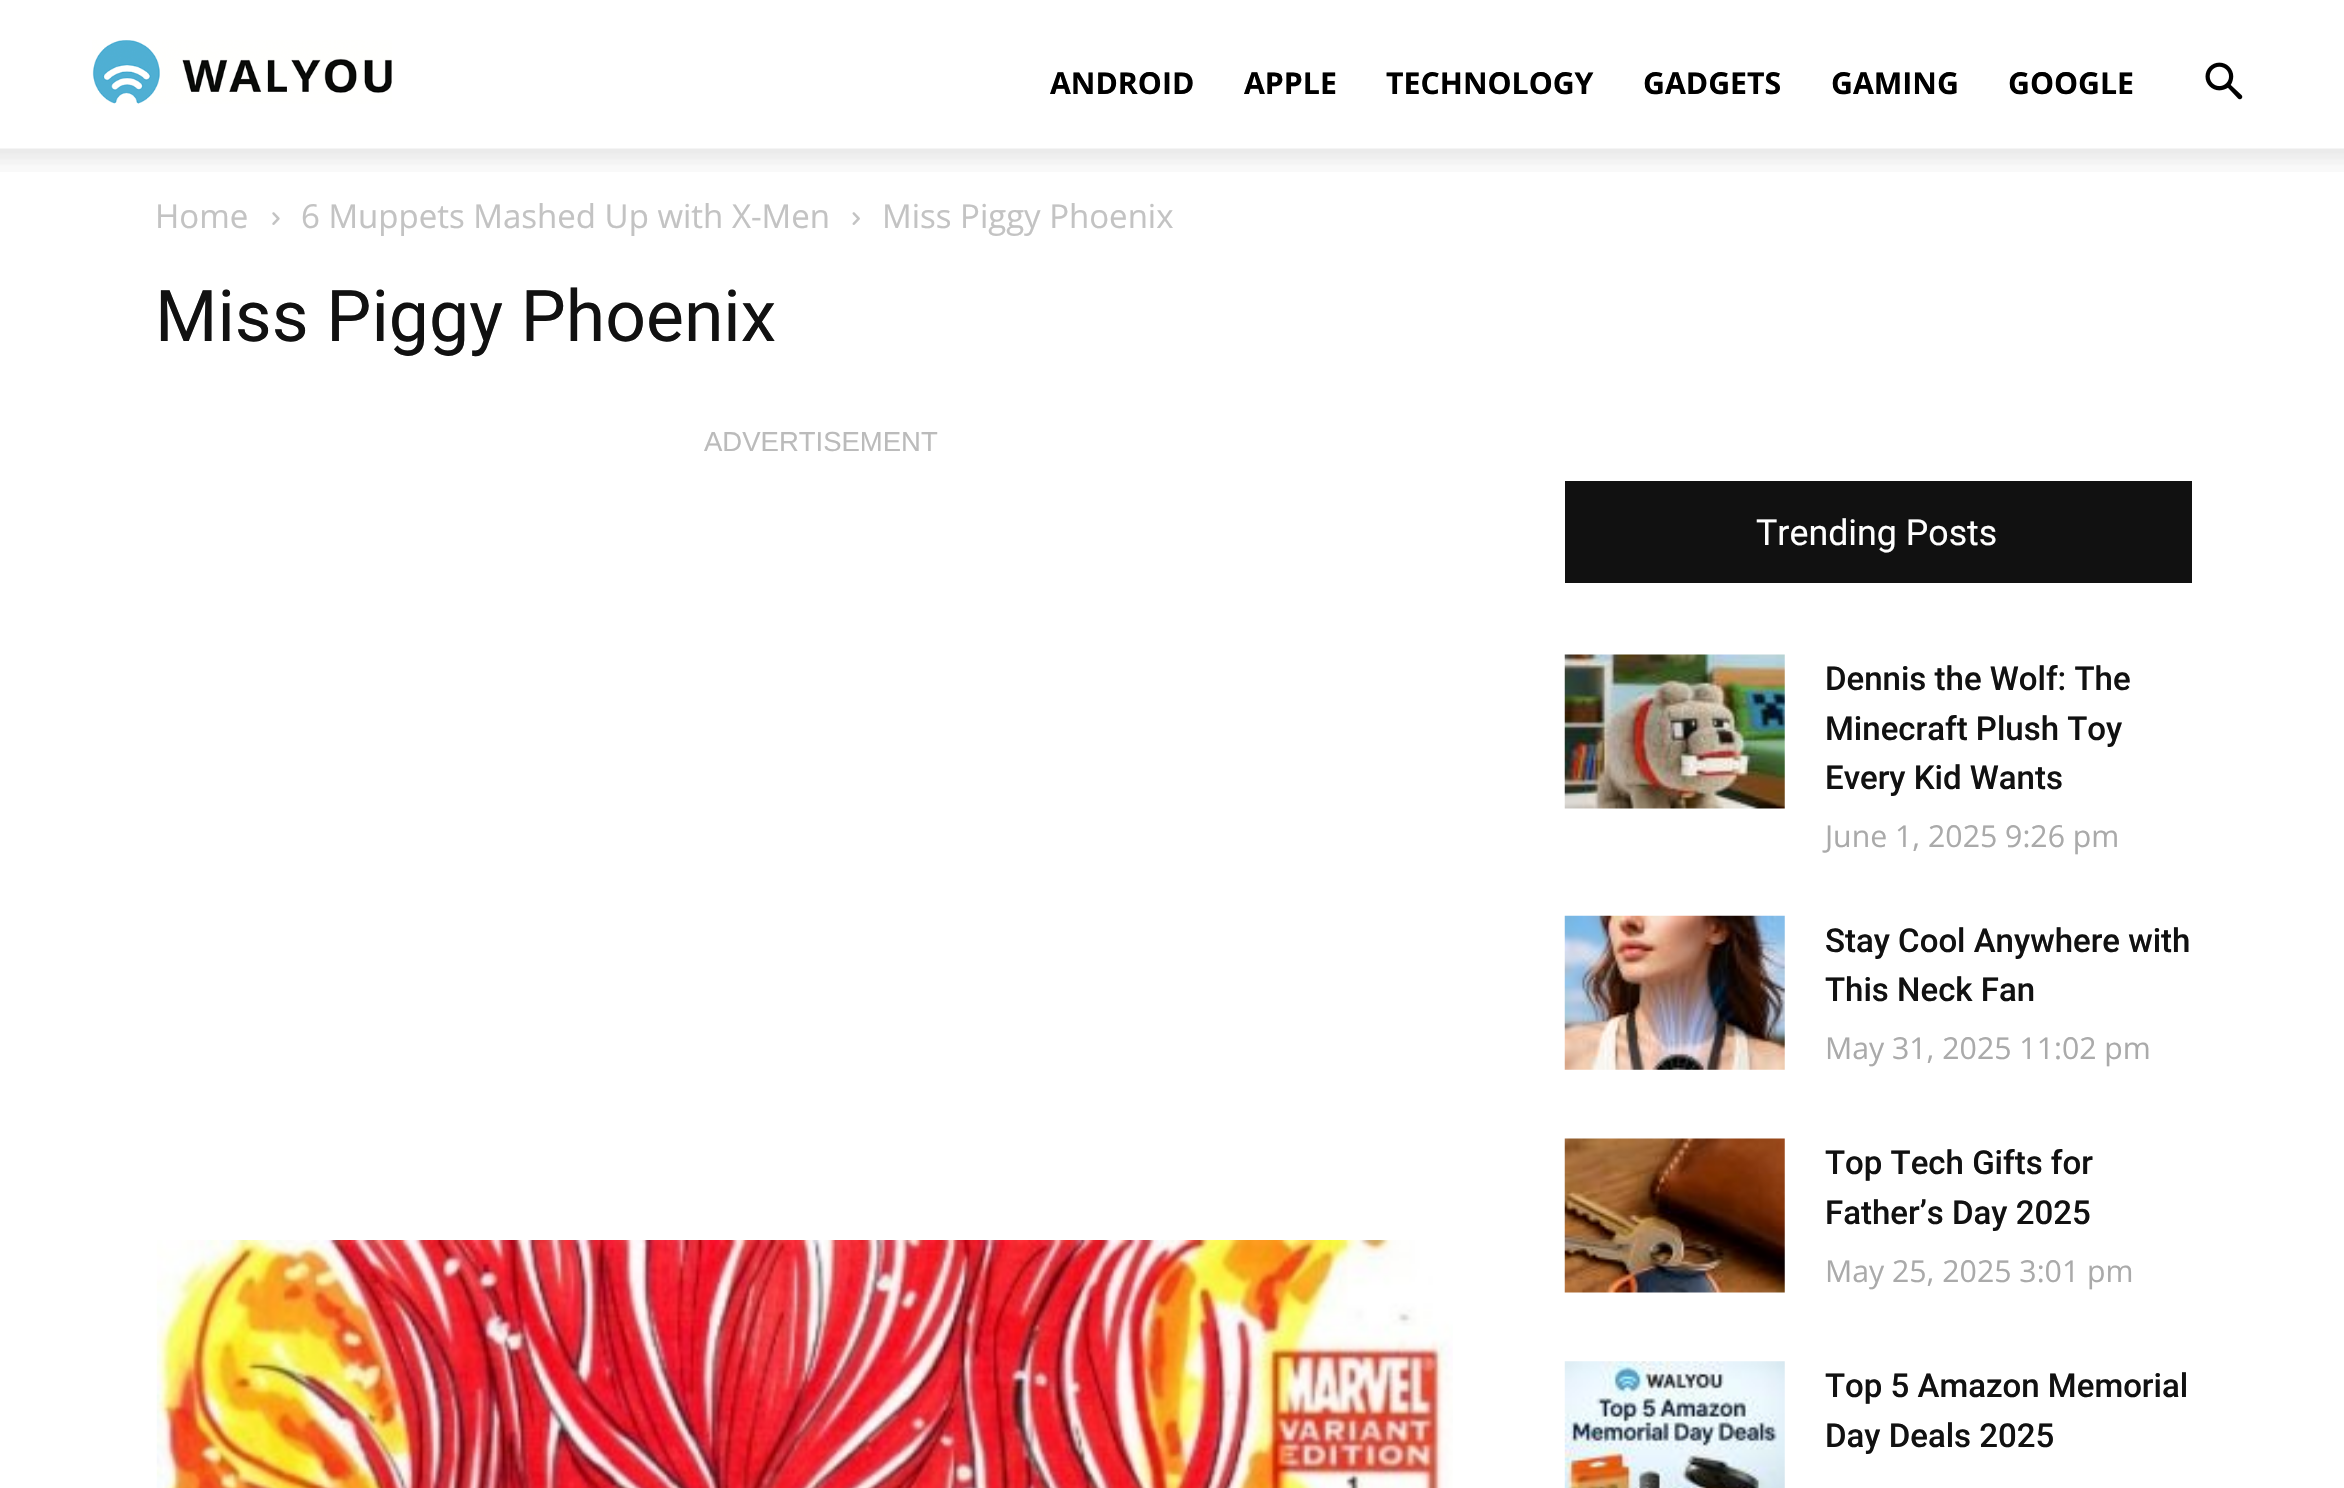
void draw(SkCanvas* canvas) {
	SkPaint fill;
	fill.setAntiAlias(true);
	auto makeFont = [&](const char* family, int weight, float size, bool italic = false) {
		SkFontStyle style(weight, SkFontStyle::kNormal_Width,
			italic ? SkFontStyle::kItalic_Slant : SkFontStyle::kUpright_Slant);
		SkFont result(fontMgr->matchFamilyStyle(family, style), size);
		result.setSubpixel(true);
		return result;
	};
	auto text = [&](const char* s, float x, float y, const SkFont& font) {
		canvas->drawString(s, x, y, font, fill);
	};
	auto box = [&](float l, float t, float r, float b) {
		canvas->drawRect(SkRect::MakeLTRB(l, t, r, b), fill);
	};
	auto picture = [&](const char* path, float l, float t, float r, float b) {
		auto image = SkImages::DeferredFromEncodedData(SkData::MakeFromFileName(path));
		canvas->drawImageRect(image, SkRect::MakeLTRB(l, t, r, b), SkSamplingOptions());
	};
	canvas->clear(0xFFFFFFFF);
	picture("image0.png", 92, 40, 392, 104);
	picture("image1.png", 2205, 62, 2243, 100);
	picture("image2.png", 0, 148, 2344, 172);
	picture("image3.png", 272, 212, 280, 225);
	picture("image4.png", 852, 212, 860, 225);
	picture("image5.png", 156, 1240, 1453, 1488);
	fill.setColor(0xFF111111);
	box(1565, 481, 2192, 583);
	picture("image6.png", 1564, 654, 1785, 809);
	picture("image7.png", 1564, 915, 1785, 1070);
	picture("image8.png", 1564, 1138, 1785, 1293);
	picture("image9.png", 1564, 1361, 1785, 1488);
	auto font1 = makeFont("Open Sans", 700, 30.25f);
	fill.setColor(0xFF000000);
	text("ANDROID", 1050, 94, font1);
	text("APPLE", 1244, 94, font1);
	text("TECHNOLOGY", 1386, 94, font1);
	text("GADGETS", 1643, 94, font1);
	text("GAMING", 1831, 94, font1);
	text("GOOGLE", 2008, 94, font1);
	auto font2 = makeFont("Open Sans", 400, 33);
	fill.setColor(0xFFC3C3C3);
	text("Home", 155, 228, font2);
	text("6 Muppets Mashed Up with X-Men", 301, 228, font2);
	text("Miss Piggy Phoenix", 882, 228, font2);
	auto font3 = makeFont("Roboto", 400, 71.5f);
	fill.setColor(0xFF111111);
	text("Miss Piggy Phoenix", 155, 341, font3);
	auto font4 = makeFont("Liberation Sans", 400, 27.5f);
	fill.setColor(0xFFBBBBBB);
	text("ADVERTISEMENT", 704, 451, font4);
	auto font5 = makeFont("Roboto", 400, 35.75f);
	fill.setColor(0xFFFFFFFF);
	text("Trending Posts", 1756, 545, font5);
	auto font6 = makeFont("Roboto", 500, 33);
	fill.setColor(0xFF111111);
	text("Dennis the Wolf: The", 1825, 690, font6);
	text("Minecraft Plush Toy", 1825, 740, font6);
	text("Every Kid Wants", 1825, 789, font6);
	auto font7 = makeFont("Open Sans", 400, 30.25f);
	fill.setColor(0xFFAAAAAA);
	text("June 1, 2025 9:26 pm", 1825, 847, font7);
	fill.setColor(0xFF111111);
	text("Stay Cool Anywhere with", 1825, 952, font6);
	text("This Neck Fan", 1825, 1001, font6);
	fill.setColor(0xFFAAAAAA);
	text("May 31, 2025 11:02 pm", 1825, 1059, font7);
	fill.setColor(0xFF111111);
	text("Top Tech Gifts for", 1825, 1174, font6);
	text("Father’s Day 2025", 1825, 1224, font6);
	fill.setColor(0xFFAAAAAA);
	text("May 25, 2025 3:01 pm", 1825, 1282, font7);
	fill.setColor(0xFF111111);
	text("Top 5 Amazon Memorial", 1825, 1397, font6);
	text("Day Deals 2025", 1825, 1447, font6);
}
